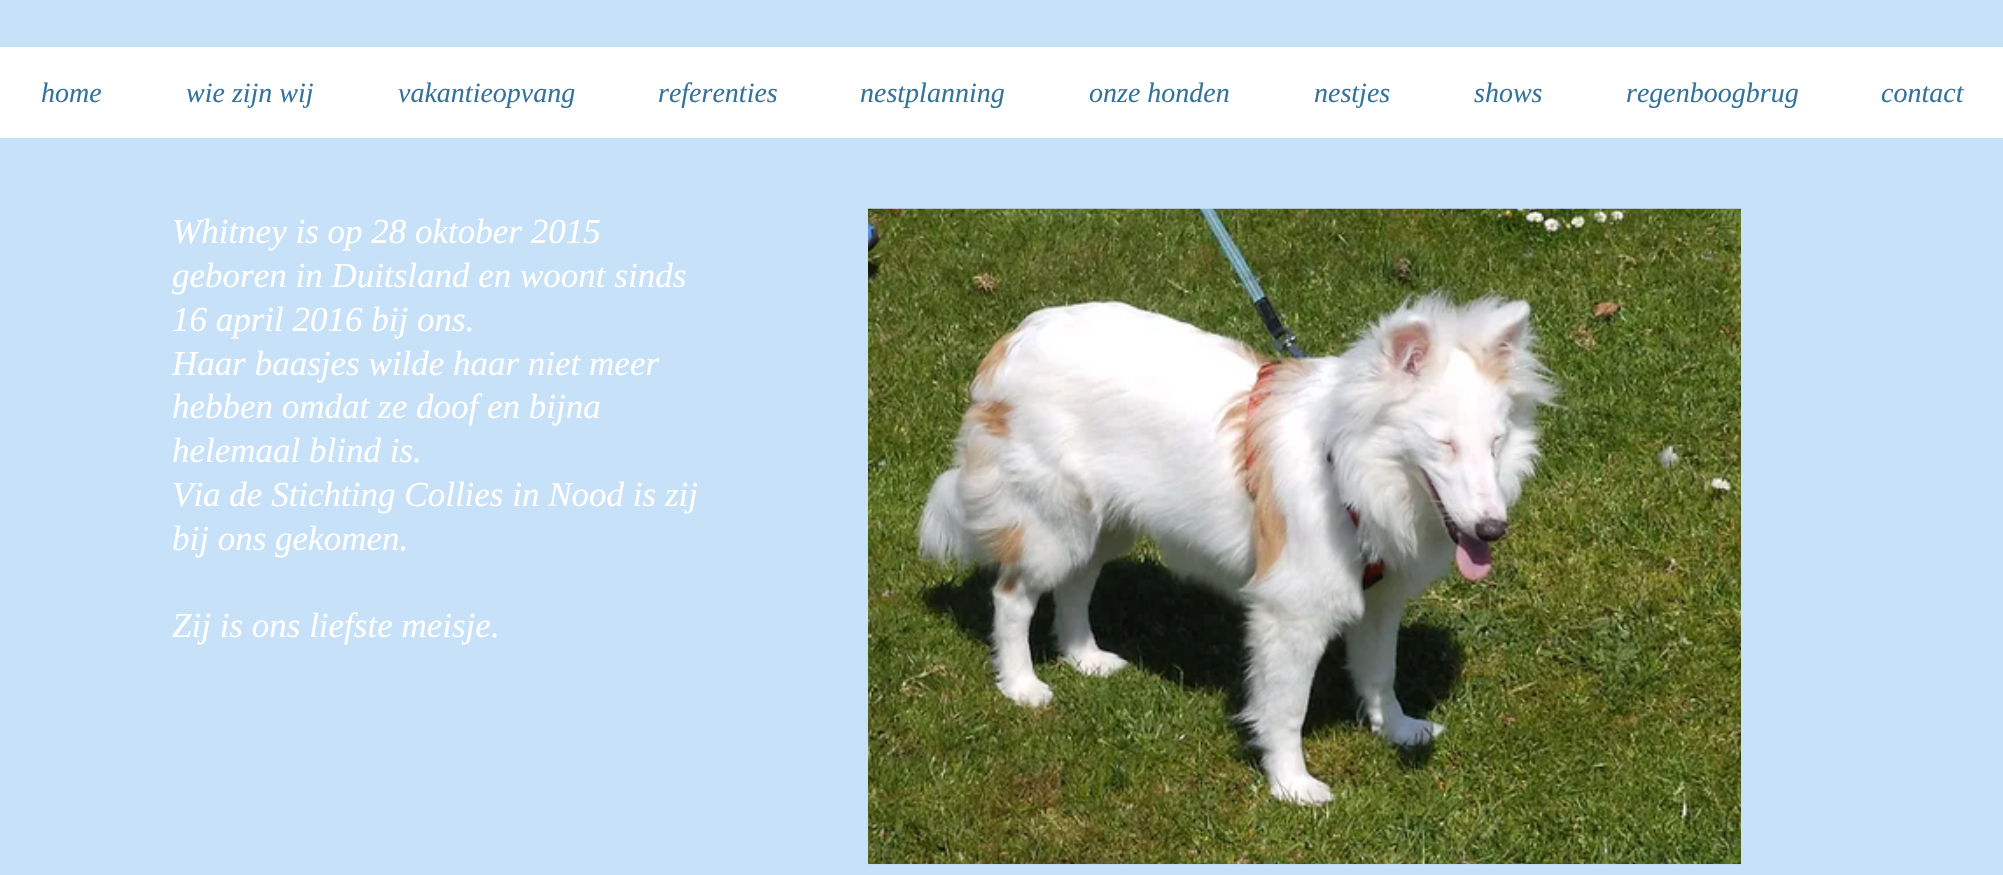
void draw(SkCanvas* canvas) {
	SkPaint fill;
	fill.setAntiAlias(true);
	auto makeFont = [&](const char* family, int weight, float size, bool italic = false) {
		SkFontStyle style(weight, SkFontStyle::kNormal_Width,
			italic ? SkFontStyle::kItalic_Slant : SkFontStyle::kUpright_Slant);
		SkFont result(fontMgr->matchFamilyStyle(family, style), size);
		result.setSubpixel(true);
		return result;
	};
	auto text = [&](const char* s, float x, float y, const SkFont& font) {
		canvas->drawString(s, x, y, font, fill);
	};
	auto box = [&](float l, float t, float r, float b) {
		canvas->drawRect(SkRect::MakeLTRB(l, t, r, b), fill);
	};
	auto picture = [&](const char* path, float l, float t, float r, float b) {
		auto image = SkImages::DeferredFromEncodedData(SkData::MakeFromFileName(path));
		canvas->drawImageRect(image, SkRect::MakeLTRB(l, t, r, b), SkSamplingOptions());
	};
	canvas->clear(0xFFC7E2F8);
	fill.setColor(0xFFFFFFFF);
	box(0, 47, 2003, 138);
	picture("image0.png", 868, 208, 1741, 865);
	auto font1 = makeFont("Liberation Serif", 400, 28, true);
	fill.setColor(0xFF357299);
	text("home", 41, 102, font1);
	text("wie zijn wij", 186, 102, font1);
	text("vakantieopvang", 398, 102, font1);
	text("referenties", 658, 102, font1);
	text("nestplanning", 860, 102, font1);
	text("onze honden", 1089, 102, font1);
	text("nestjes", 1314, 102, font1);
	text("shows", 1474, 102, font1);
	text("regenboogbrug", 1626, 102, font1);
	text("contact", 1881, 102, font1);
	auto font2 = makeFont("Liberation Serif", 400, 35, true);
	fill.setColor(0xFFFFFFFF);
	text("Whitney is op 28 oktober 2015", 172, 243, font2);
	text("geboren in Duitsland en woont sinds", 172, 287, font2);
	text("16 april 2016 bij ons.", 172, 331, font2);
	text("Haar baasjes wilde haar niet meer", 172, 375, font2);
	text("hebben omdat ze doof en bijna", 172, 418, font2);
	text("helemaal blind is.", 172, 462, font2);
	text("Via de Stichting Collies in Nood is zij", 172, 506, font2);
	text("bij ons gekomen.", 172, 550, font2);
	text("Zij is ons liefste meisje.", 172, 637, font2);
}
